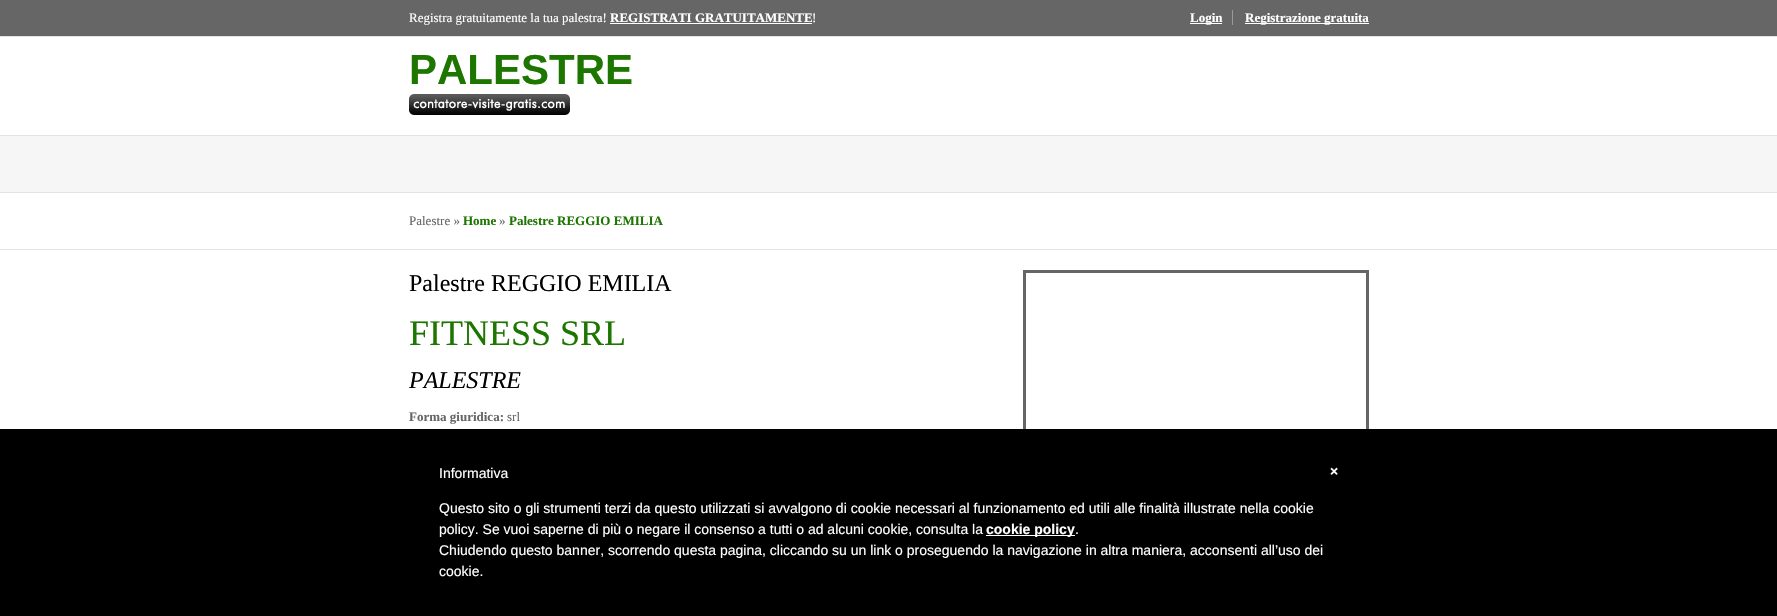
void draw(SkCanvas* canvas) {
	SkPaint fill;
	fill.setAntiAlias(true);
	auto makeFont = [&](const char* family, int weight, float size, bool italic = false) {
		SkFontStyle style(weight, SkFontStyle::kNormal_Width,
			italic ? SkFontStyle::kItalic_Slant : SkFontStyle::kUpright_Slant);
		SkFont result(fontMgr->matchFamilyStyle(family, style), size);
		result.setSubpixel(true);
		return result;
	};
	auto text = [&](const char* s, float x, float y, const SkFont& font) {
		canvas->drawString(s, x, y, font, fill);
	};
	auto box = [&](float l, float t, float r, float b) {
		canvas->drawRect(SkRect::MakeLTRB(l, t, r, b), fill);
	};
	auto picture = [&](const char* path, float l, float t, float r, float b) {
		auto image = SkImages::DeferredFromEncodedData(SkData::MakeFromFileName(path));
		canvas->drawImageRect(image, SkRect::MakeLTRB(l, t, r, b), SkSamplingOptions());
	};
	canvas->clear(0xFFFFFFFF);
	fill.setColor(0xFF666666);
	box(0, 0, 1777, 36);
	fill.setColor(0xFFE3E3E3);
	box(0, 36, 1777, 37);
	fill.setColor(0xFFFFFFFF);
	box(610, 23, 812, 24);
	fill.setColor(0xFF999999);
	box(1232, 10, 1233, 25);
	fill.setColor(0xFFFFFFFF);
	box(1190, 23, 1222, 24);
	box(1245, 23, 1369, 24);
	fill.setColor(0xFFE3E3E3);
	box(0, 135, 1777, 136);
	picture("image0.png", 409, 94, 570, 115);
	fill.setColor(0xFFF6F6F6);
	box(0, 136, 1777, 192);
	fill.setColor(0xFFE3E3E3);
	box(0, 192, 1777, 193);
	box(0, 249, 1777, 250);
	fill.setStyle(SkPaint::kStroke_Style);
	fill.setStrokeWidth(3);
	fill.setColor(0xFF666666);
	canvas->drawRect(SkRect::MakeLTRB(1024.5f, 271.5f, 1367.5f, 558.5f), fill);
	fill.setStyle(SkPaint::kFill_Style);
	fill.setColor(0xFF000000);
	box(0, 429, 1777, 616);
	fill.setColor(0xFFFFFFFF);
	box(986, 535, 1075, 536);
	auto font1 = makeFont("Liberation Serif", 400, 13);
	text("Registra gratuitamente la tua palestra!", 409, 22, font1);
	auto font2 = makeFont("Liberation Serif", 700, 13);
	text("REGISTRATI GRATUITAMENTE", 610, 22, font2);
	text("!", 812, 22, font1);
	text("Login", 1190, 22, font2);
	text("Registrazione gratuita", 1245, 22, font2);
	auto font3 = makeFont("Liberation Sans", 700, 42);
	fill.setColor(0xFF1D7600);
	text("PALESTRE", 409, 84, font3);
	fill.setColor(0xFF666666);
	text("Palestre »", 409, 225, font1);
	fill.setColor(0xFF1D7600);
	text("Home", 463, 225, font2);
	fill.setColor(0xFF666666);
	text("»", 499, 225, font1);
	fill.setColor(0xFF1D7600);
	text("Palestre REGGIO EMILIA", 509, 225, font2);
	auto font4 = makeFont("Liberation Serif", 400, 24);
	fill.setColor(0xFF000000);
	text("Palestre REGGIO EMILIA", 409, 291, font4);
	auto font5 = makeFont("Liberation Serif", 400, 36);
	fill.setColor(0xFF1D7600);
	text("FITNESS SRL", 409, 345, font5);
	auto font6 = makeFont("Liberation Serif", 400, 24, true);
	fill.setColor(0xFF000000);
	text("PALESTRE", 409, 388, font6);
	fill.setColor(0xFF666666);
	text("Forma giuridica:", 409, 421, font2);
	text("srl", 507, 421, font1);
	auto font7 = makeFont("Liberation Sans", 400, 14);
	fill.setColor(0xFFFFFFFF);
	text("Informativa", 439, 478, font7);
	text("Questo sito o gli strumenti terzi da questo utilizzati si avvalgono di cookie necessari al funzionamento ed utili alle finalità illustrate nella cookie", 439, 513, font7);
	text("policy. Se vuoi saperne di più o negare il consenso a tutti o ad alcuni cookie, consulta la", 439, 534, font7);
	auto font8 = makeFont("Liberation Sans", 700, 14);
	text("cookie policy", 986, 534, font8);
	text(".", 1075, 534, font7);
	text("Chiudendo questo banner, scorrendo questa pagina, cliccando su un link o proseguendo la navigazione in altra maniera, acconsenti all’uso dei", 439, 555, font7);
	text("cookie.", 439, 576, font7);
	text("×", 1330, 476, font8);
}
